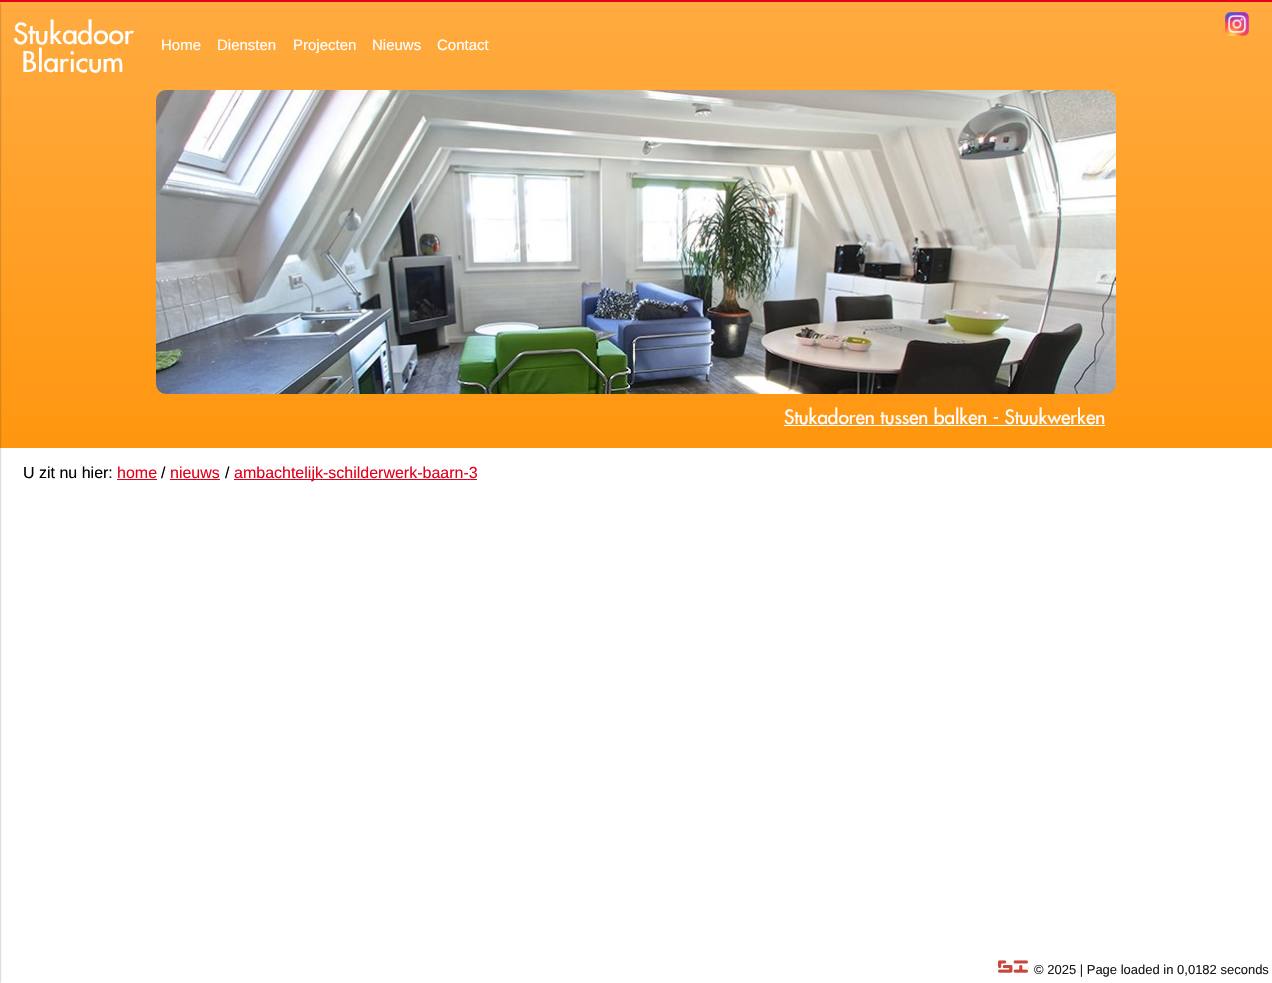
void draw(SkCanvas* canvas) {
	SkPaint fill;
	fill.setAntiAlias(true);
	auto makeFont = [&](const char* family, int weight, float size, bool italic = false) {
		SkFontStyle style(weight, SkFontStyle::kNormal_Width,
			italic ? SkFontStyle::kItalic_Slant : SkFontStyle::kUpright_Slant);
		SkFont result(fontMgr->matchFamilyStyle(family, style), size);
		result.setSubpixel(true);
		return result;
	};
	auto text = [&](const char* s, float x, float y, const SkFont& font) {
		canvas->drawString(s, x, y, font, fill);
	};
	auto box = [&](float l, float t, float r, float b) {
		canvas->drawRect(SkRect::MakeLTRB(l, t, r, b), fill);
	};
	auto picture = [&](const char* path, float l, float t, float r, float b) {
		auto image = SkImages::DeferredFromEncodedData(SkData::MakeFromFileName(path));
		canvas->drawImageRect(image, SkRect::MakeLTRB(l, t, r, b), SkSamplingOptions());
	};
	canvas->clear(0xFFFFFFFF);
	{
		const SkColor colors[] = {0xFFFFAB41, 0xFFFF960F};
		const float stops[] = {0, 1};
		const SkPoint ends[] = {{636, 0}, {636, 448}};
		fill.setShader(SkGradientShader::MakeLinear(ends, colors, stops, 2, SkTileMode::kClamp));
		fill.setAlpha(255);
	}
	box(0, 2, 1272, 448);
	fill.setShader(nullptr);
	fill.setColor(0xFFE3001B);
	box(0, 0, 1272, 2);
	fill.setColor(0x80000000);
	fill.setMaskFilter(SkMaskFilter::MakeBlur(kNormal_SkBlurStyle, 1));
	canvas->drawRoundRect(SkRect::MakeLTRB(-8, 2, 0, 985), 5, 5, fill);
	fill.setMaskFilter(nullptr);
	picture("image0.png", 1225, 12, 1249, 36);
	picture("image1.png", 156, 90, 1116, 394);
	fill.setColor(0xFFFFFFFF);
	box(784, 425, 1105, 426);
	fill.setColor(0xFFE3001B);
	box(117, 479, 157, 480);
	box(170, 479, 220, 480);
	box(234, 479, 477, 480);
	picture("image2.png", 998, 960, 1028, 973);
	auto font1 = makeFont("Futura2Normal", 100, 28);
	fill.setColor(0xFFFFFFFF);
	text("Stukadoor", 13, 44, font1);
	text("Blaricum", 22, 72, font1);
	auto font2 = makeFont("Liberation Sans", 400, 15);
	text("Home", 161, 50, font2);
	text("Diensten", 217, 50, font2);
	text("Projecten", 293, 50, font2);
	text("Nieuws", 372, 50, font2);
	text("Contact", 437, 50, font2);
	auto font3 = makeFont("Futura2Normal", 100, 19);
	text("Stukadoren tussen balken - Stuukwerken", 784, 424, font3);
	auto font4 = makeFont("Liberation Sans", 400, 16);
	fill.setColor(0xFF000000);
	text("U zit nu hier:", 23, 478, font4);
	fill.setColor(0xFFE3001B);
	text("home", 117, 478, font4);
	fill.setColor(0xFF000000);
	text("/", 161, 478, font4);
	fill.setColor(0xFFE3001B);
	text("nieuws", 170, 478, font4);
	fill.setColor(0xFF000000);
	text("/", 225, 478, font4);
	fill.setColor(0xFFE3001B);
	text("ambachtelijk-schilderwerk-baarn-3", 234, 478, font4);
	auto font5 = makeFont("Liberation Sans", 400, 13);
	fill.setColor(0xFF1A1A1A);
	text("© 2025 | Page loaded in 0,0182 seconds", 1034, 974, font5);
}
